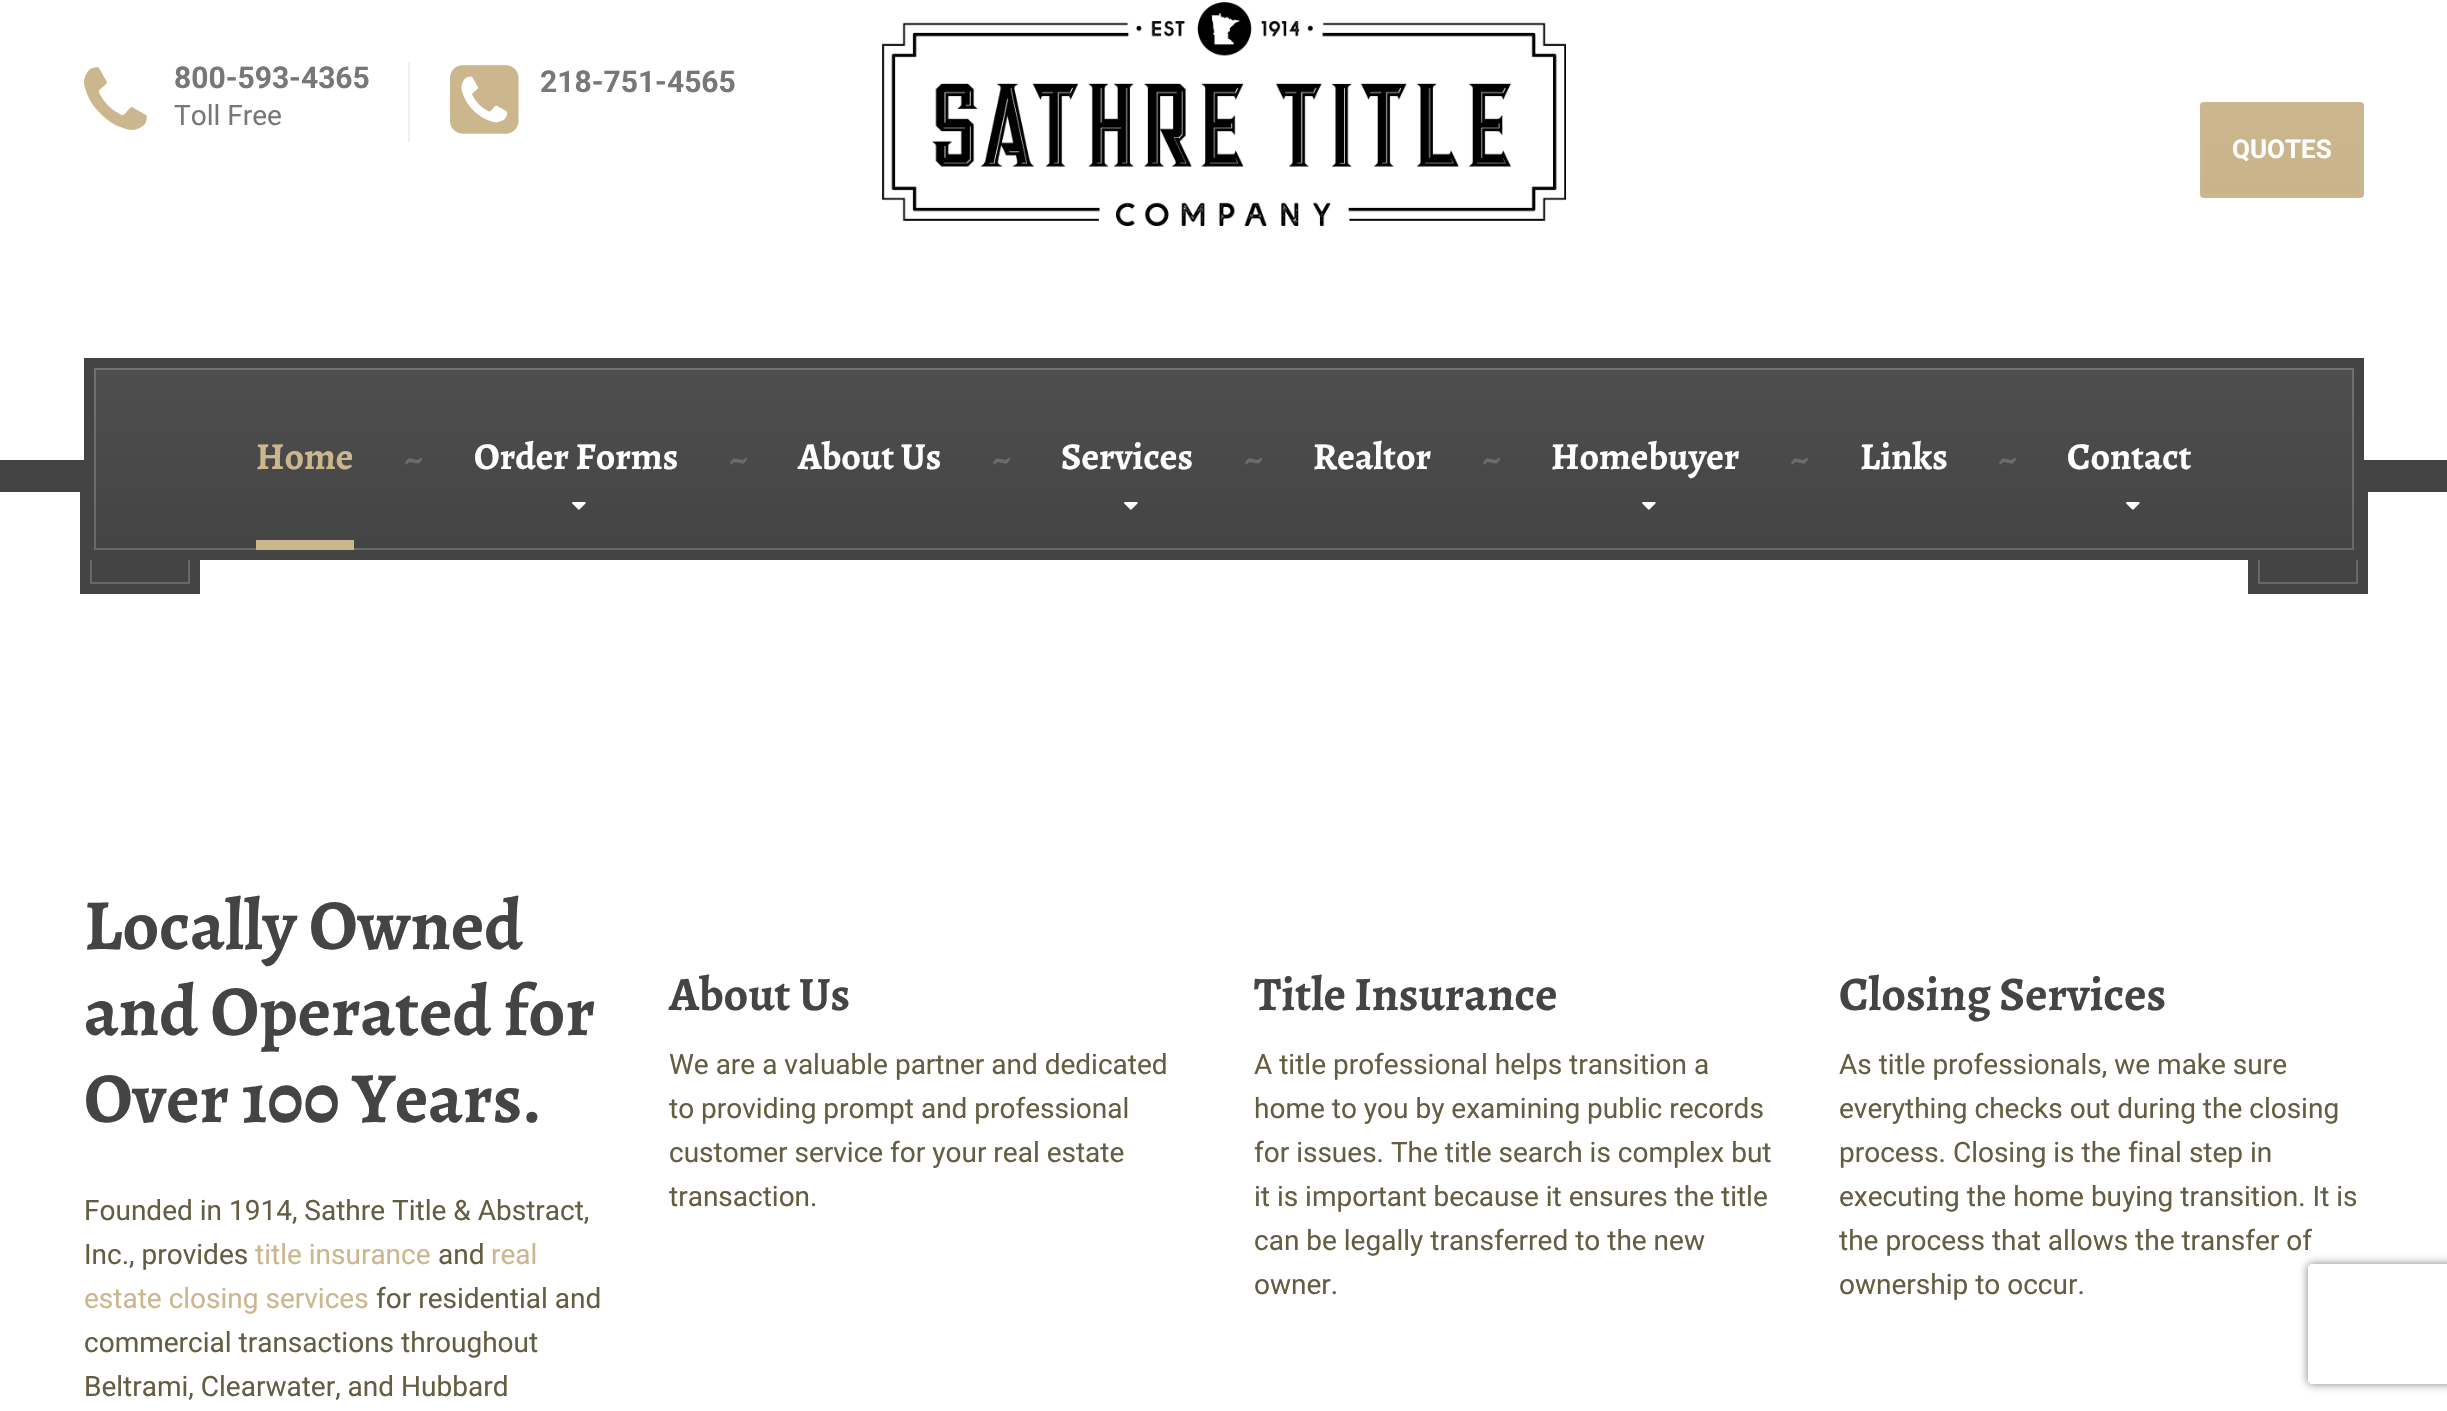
void draw(SkCanvas* canvas) {
	SkPaint fill;
	fill.setAntiAlias(true);
	auto makeFont = [&](const char* family, int weight, float size, bool italic = false) {
		SkFontStyle style(weight, SkFontStyle::kNormal_Width,
			italic ? SkFontStyle::kItalic_Slant : SkFontStyle::kUpright_Slant);
		SkFont result(fontMgr->matchFamilyStyle(family, style), size);
		result.setSubpixel(true);
		return result;
	};
	auto text = [&](const char* s, float x, float y, const SkFont& font) {
		canvas->drawString(s, x, y, font, fill);
	};
	auto box = [&](float l, float t, float r, float b) {
		canvas->drawRect(SkRect::MakeLTRB(l, t, r, b), fill);
	};
	auto picture = [&](const char* path, float l, float t, float r, float b) {
		auto image = SkImages::DeferredFromEncodedData(SkData::MakeFromFileName(path));
		canvas->drawImageRect(image, SkRect::MakeLTRB(l, t, r, b), SkSamplingOptions());
	};
	canvas->clear(0xFFFFFFFF);
	picture("image0.png", 84, 67, 147, 130);
	fill.setColor(0xFFF0F0F0);
	box(408, 62, 410, 142);
	picture("image1.png", 450, 65, 519, 134);
	picture("image2.png", 882, 2, 1566, 226);
	{
		const SkColor colors[] = {0xFFCCB68D, 0xFFC9B38A};
		const float stops[] = {0, 1};
		const SkPoint ends[] = {{2282, 106}, {2282, 194}};
		fill.setShader(SkGradientShader::MakeLinear(ends, colors, stops, 2, SkTileMode::kClamp));
		fill.setAlpha(255);
	}
	box(2204, 106, 2360, 194);
	fill.setStyle(SkPaint::kStroke_Style);
	fill.setStrokeWidth(4);
	fill.setShader(nullptr);
	fill.setColor(0xFFCCB68D);
	canvas->drawRoundRect(SkRect::MakeLTRB(2202, 104, 2362, 196), 2, 2, fill);
	fill.setStyle(SkPaint::kFill_Style);
	fill.setColor(0xFF444444);
	box(0, 460, 2447, 492);
	box(80, 492, 200, 594);
	fill.setStyle(SkPaint::kStroke_Style);
	fill.setStrokeWidth(2);
	fill.setColor(0xFF686868);
	canvas->drawRect(SkRect::MakeLTRB(91, 485, 189, 583), fill);
	fill.setStyle(SkPaint::kFill_Style);
	fill.setColor(0xFF444444);
	box(2248, 492, 2368, 594);
	fill.setStyle(SkPaint::kStroke_Style);
	fill.setColor(0xFF686868);
	canvas->drawRect(SkRect::MakeLTRB(2259, 485, 2357, 583), fill);
	fill.setStyle(SkPaint::kFill_Style);
	{
		const SkColor colors[] = {0xFF4E4E4E, 0xFF444444};
		const float stops[] = {0, 1};
		const SkPoint ends[] = {{1224, 368}, {1224, 550}};
		fill.setShader(SkGradientShader::MakeLinear(ends, colors, stops, 2, SkTileMode::kClamp));
		fill.setAlpha(255);
	}
	box(94, 368, 2354, 550);
	fill.setStyle(SkPaint::kStroke_Style);
	fill.setShader(nullptr);
	fill.setColor(0x33FAFAFA);
	canvas->drawRect(SkRect::MakeLTRB(95, 369, 2353, 549), fill);
	fill.setStrokeWidth(10);
	fill.setColor(0xFF444444);
	canvas->drawRect(SkRect::MakeLTRB(89, 363, 2359, 555), fill);
	fill.setStyle(SkPaint::kFill_Style);
	fill.setColor(0xFFCCB68D);
	box(256, 540, 354, 550);
	picture("image3.png", 572, 502, 586, 510);
	picture("image3.png", 1124, 502, 1138, 510);
	picture("image3.png", 1642, 502, 1656, 510);
	picture("image3.png", 2126, 502, 2140, 510);
	canvas->save();
	canvas->clipPath(SkPathBuilder(SkPathFillType::kEvenOdd).moveTo(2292, 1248).lineTo(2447, 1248).lineTo(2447, 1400).lineTo(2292, 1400).close().moveTo(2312, 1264).lineTo(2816, 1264).cubicTo(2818, 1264, 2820, 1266, 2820, 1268).lineTo(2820, 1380).cubicTo(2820, 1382, 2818, 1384, 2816, 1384).lineTo(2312, 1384).cubicTo(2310, 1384, 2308, 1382, 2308, 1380).lineTo(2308, 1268).cubicTo(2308, 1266, 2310, 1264, 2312, 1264).close().detach(), true);
	fill.setColor(0xFF808080);
	fill.setMaskFilter(SkMaskFilter::MakeBlur(kNormal_SkBlurStyle, 5));
	canvas->drawRoundRect(SkRect::MakeLTRB(2308, 1264, 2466, 1384), 4, 4, fill);
	fill.setMaskFilter(nullptr);
	canvas->restore();
	auto font1 = makeFont("Roboto", 700, 30);
	fill.setColor(0xFF777777);
	text("800-593-4365", 174, 88, font1);
	auto font2 = makeFont("Roboto", 400, 28);
	text("Toll Free", 174, 125, font2);
	text("218-751-4565", 540, 92, font1);
	auto font3 = makeFont("Roboto", 700, 26);
	fill.setColor(0xFFFFFFFF);
	text("QUOTES", 2232, 158, font3);
	auto font4 = makeFont("Alegreya", 700, 38);
	fill.setColor(0xFFCCB68D);
	text("Home", 256, 469, font4);
	fill.setColor(0xFF6C6C6C);
	text("~", 404, 471, font4);
	fill.setColor(0xFFFFFFFF);
	text("Order Forms", 474, 469, font4);
	fill.setColor(0xFF6C6C6C);
	text("~", 729, 471, font4);
	fill.setColor(0xFFFFFFFF);
	text("About Us", 798, 469, font4);
	fill.setColor(0xFF6C6C6C);
	text("~", 992, 471, font4);
	fill.setColor(0xFFFFFFFF);
	text("Services", 1061, 469, font4);
	fill.setColor(0xFF6C6C6C);
	text("~", 1244, 471, font4);
	fill.setColor(0xFFFFFFFF);
	text("Realtor", 1313, 469, font4);
	fill.setColor(0xFF6C6C6C);
	text("~", 1482, 471, font4);
	fill.setColor(0xFFFFFFFF);
	text("Homebuyer", 1551, 469, font4);
	fill.setColor(0xFF6C6C6C);
	text("~", 1790, 471, font4);
	fill.setColor(0xFFFFFFFF);
	text("Links", 1860, 469, font4);
	fill.setColor(0xFF6C6C6C);
	text("~", 1998, 471, font4);
	fill.setColor(0xFFFFFFFF);
	text("Contact", 2067, 469, font4);
	auto font5 = makeFont("Alegreya", 700, 72);
	fill.setColor(0xFF444444);
	text("Locally Owned", 84, 949, font5);
	text("and Operated for", 84, 1035, font5);
	text("Over 100 Years.", 84, 1122, font5);
	fill.setColor(0xFF635E41);
	text("Founded in 1914, Sathre Title & Abstract,", 84, 1220, font2);
	text("Inc., provides", 84, 1264, font2);
	fill.setColor(0xFFCCB68D);
	text("title insurance", 255, 1264, font2);
	fill.setColor(0xFF635E41);
	text("and", 438, 1264, font2);
	fill.setColor(0xFFCCB68D);
	text("real", 491, 1264, font2);
	text("estate closing services", 84, 1308, font2);
	fill.setColor(0xFF635E41);
	text("for residential and", 376, 1308, font2);
	text("commercial transactions throughout", 84, 1352, font2);
	text("Beltrami, Clearwater, and Hubbard", 84, 1396, font2);
	auto font6 = makeFont("Alegreya", 700, 48);
	fill.setColor(0xFF444444);
	text("About Us", 669, 1010, font6);
	fill.setColor(0xFF635E41);
	text("We are a valuable partner and dedicated", 669, 1074, font2);
	text("to providing prompt and professional", 669, 1118, font2);
	text("customer service for your real estate", 669, 1162, font2);
	text("transaction.", 669, 1206, font2);
	fill.setColor(0xFF444444);
	text("Title Insurance", 1254, 1010, font6);
	fill.setColor(0xFF635E41);
	text("A title professional helps transition a", 1254, 1074, font2);
	text("home to you by examining public records", 1254, 1118, font2);
	text("for issues. The title search is complex but", 1254, 1162, font2);
	text("it is important because it ensures the title", 1254, 1206, font2);
	text("can be legally transferred to the new", 1254, 1250, font2);
	text("owner.", 1254, 1294, font2);
	fill.setColor(0xFF444444);
	text("Closing Services", 1839, 1010, font6);
	fill.setColor(0xFF635E41);
	text("As title professionals, we make sure", 1839, 1074, font2);
	text("everything checks out during the closing", 1839, 1118, font2);
	text("process. Closing is the final step in", 1839, 1162, font2);
	text("executing the home buying transition. It is", 1839, 1206, font2);
	text("the process that allows the transfer of", 1839, 1250, font2);
	text("ownership to occur.", 1839, 1294, font2);
}
